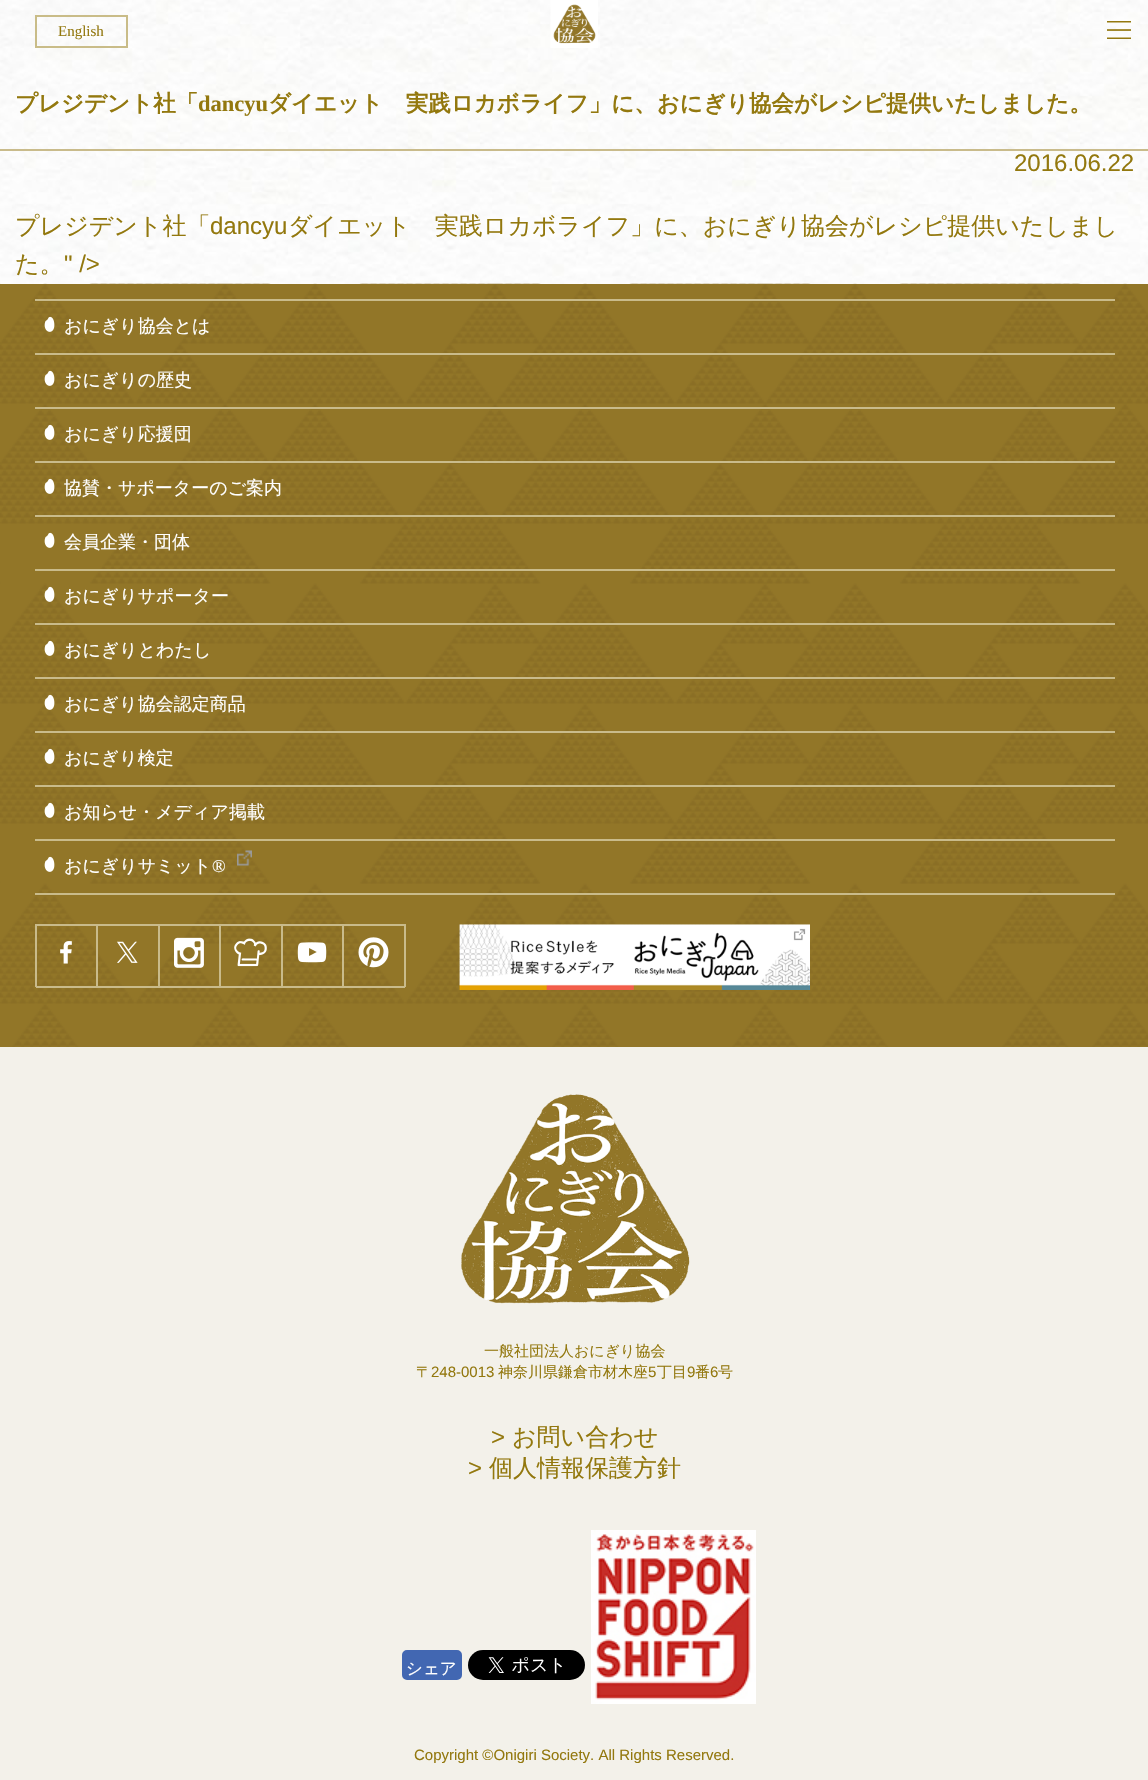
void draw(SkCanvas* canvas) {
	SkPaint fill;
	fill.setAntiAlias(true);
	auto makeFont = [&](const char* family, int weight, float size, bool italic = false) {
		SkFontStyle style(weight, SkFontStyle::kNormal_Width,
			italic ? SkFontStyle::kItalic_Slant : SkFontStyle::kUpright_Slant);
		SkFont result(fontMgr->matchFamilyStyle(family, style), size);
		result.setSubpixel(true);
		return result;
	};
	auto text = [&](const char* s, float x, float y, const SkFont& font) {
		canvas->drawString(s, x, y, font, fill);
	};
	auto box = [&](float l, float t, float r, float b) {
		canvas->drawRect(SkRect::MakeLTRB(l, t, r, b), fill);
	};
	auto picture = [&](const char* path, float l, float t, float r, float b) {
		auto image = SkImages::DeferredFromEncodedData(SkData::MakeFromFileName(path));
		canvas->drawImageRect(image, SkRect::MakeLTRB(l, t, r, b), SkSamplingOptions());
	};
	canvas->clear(0xFFFFFFFF);
	picture("image0.png", 0, 0, 1148, 284);
	fill.setStyle(SkPaint::kStroke_Style);
	fill.setStrokeWidth(2);
	fill.setColor(0xFFC9BC88);
	canvas->drawRect(SkRect::MakeLTRB(36, 16, 127, 47), fill);
	picture("image1.png", 550, 0, 598, 48);
	picture("image2.png", 1107, 21, 1131, 39);
	fill.setStyle(SkPaint::kFill_Style);
	fill.setColor(0xFFC9BB8B);
	box(0, 149, 1148, 151);
	fill.setColor(0xFFF3F1EA);
	box(0, 1047, 1148, 1780);
	fill.setColor(0xFF927628);
	box(0, 284, 1148, 1047);
	picture("image3.png", 0, 283, 1148, 1047);
	fill.setColor(0xFFC9BB8B);
	box(35, 299, 1115, 301);
	box(35, 353, 1115, 355);
	picture("image4.png", 44, 316, 55, 332);
	box(35, 407, 1115, 409);
	picture("image5.png", 44, 370, 55, 386);
	box(35, 461, 1115, 463);
	picture("image4.png", 44, 424, 55, 440);
	box(35, 515, 1115, 517);
	picture("image5.png", 44, 478, 55, 494);
	box(35, 569, 1115, 571);
	picture("image6.png", 44, 532, 55, 548);
	box(35, 623, 1115, 625);
	picture("image7.png", 44, 586, 55, 602);
	box(35, 677, 1115, 679);
	picture("image8.png", 44, 640, 55, 656);
	box(35, 731, 1115, 733);
	picture("image9.png", 44, 694, 55, 710);
	box(35, 785, 1115, 787);
	picture("image8.png", 44, 748, 55, 764);
	box(35, 839, 1115, 841);
	picture("image10.png", 44, 802, 55, 818);
	box(35, 893, 1115, 895);
	picture("image6.png", 44, 856, 55, 872);
	picture("image11.png", 237, 850, 252, 866);
	box(35, 924, 37, 987);
	box(36, 924, 159, 926);
	box(96, 924, 98, 987);
	box(36, 986, 98, 988);
	picture("image12.png", 60, 941, 72, 964);
	box(158, 924, 160, 987);
	box(98, 986, 159, 988);
	picture("image13.png", 117, 941, 138, 963);
	box(159, 924, 282, 926);
	box(219, 924, 221, 987);
	box(159, 986, 221, 988);
	picture("image14.png", 174, 937, 204, 968);
	box(281, 924, 283, 987);
	box(221, 986, 282, 988);
	picture("image15.png", 234, 938, 267, 967);
	box(282, 924, 405, 926);
	box(342, 924, 344, 987);
	box(282, 986, 344, 988);
	picture("image16.png", 297, 942, 327, 963);
	box(404, 924, 406, 987);
	box(344, 986, 405, 988);
	picture("image17.png", 358, 937, 389, 968);
	picture("image18.png", 459, 924, 810, 990);
	picture("image19.png", 461, 1094, 690, 1304);
	fill.setColor(0xFF4267B2);
	canvas->drawRoundRect(SkRect::MakeLTRB(403, 1651, 461, 1679), 4, 4, fill);
	fill.setStyle(SkPaint::kStroke_Style);
	canvas->drawRoundRect(SkRect::MakeLTRB(403, 1651, 461, 1679), 4, 4, fill);
	picture("image20.png", 468, 1650, 585, 1680);
	picture("image21.png", 591, 1530, 756, 1704);
	auto font1 = makeFont("Liberation Serif", 400, 15);
	fill.setStyle(SkPaint::kFill_Style);
	fill.setColor(0xFF93780E);
	text("English", 58, 36, font1);
	auto font2 = makeFont("WenQuanYi Zen Hei", 700, 22.5f);
	text("プレジデント社「", 15, 111, font2);
	auto font3 = makeFont("Liberation Serif", 700, 22.5f);
	text("dancyu", 198, 111, font3);
	text("ダイエット　実践ロカボライフ」に、おにぎり協会がレシピ提供いたしました。", 268, 111, font2);
	auto font4 = makeFont("Liberation Sans", 400, 24);
	text("2016.06.22", 1014, 171, font4);
	auto font5 = makeFont("WenQuanYi Zen Hei", 500, 24);
	text("プレジデント社「", 15, 234, font5);
	text("dancyu", 210, 234, font4);
	text("ダイエット　実践ロカボライフ」に、おにぎり協会がレシピ提供いたしまし", 288, 234, font5);
	text("た。", 15, 272, font5);
	text("\" />", 64, 272, font4);
	auto font6 = makeFont("WenQuanYi Zen Hei", 500, 18);
	fill.setColor(0xFFFFFFFF);
	text("おにぎり協会とは", 64, 332, font6);
	text("おにぎりの歴史", 64, 386, font6);
	text("おにぎり応援団", 64, 440, font6);
	text("協賛・サポーターのご案内", 64, 494, font6);
	text("会員企業・団体", 64, 548, font6);
	text("おにぎりサポーター", 64, 602, font6);
	text("おにぎりとわたし", 64, 656, font6);
	text("おにぎり協会認定商品", 64, 710, font6);
	text("おにぎり検定", 64, 764, font6);
	text("お知らせ・メディア掲載", 64, 818, font6);
	text("おにぎりサミット", 64, 872, font6);
	auto font7 = makeFont("Liberation Serif", 400, 18);
	text("®", 212, 872, font7);
	auto font8 = makeFont("WenQuanYi Zen Hei", 500, 15);
	fill.setColor(0xFF93780E);
	text("一般社団法人おにぎり協会", 484, 1356, font8);
	text("〒", 416, 1377, font8);
	auto font9 = makeFont("Liberation Sans", 400, 15);
	text("248-0013", 431, 1377, font9);
	text("神奈川県鎌倉市材木座", 498, 1377, font8);
	text("5", 648, 1377, font9);
	text("丁目", 657, 1377, font8);
	text("9", 687, 1377, font9);
	text("番", 695, 1377, font8);
	text("6", 710, 1377, font9);
	text("号", 718, 1377, font8);
	text(">", 491, 1445, font4);
	text("お問い合わせ", 512, 1445, font5);
	text(">", 468, 1476, font4);
	text("個人情報保護方針", 489, 1476, font5);
	auto font10 = makeFont("WenQuanYi Zen Hei", 500, 16.5f);
	fill.setColor(0xFFFFFFFF);
	text("シェア", 406, 1674, font10);
	fill.setColor(0xFF93780E);
	text("Copyright ©Onigiri Society. All Rights Reserved.", 414, 1760, font9);
}
